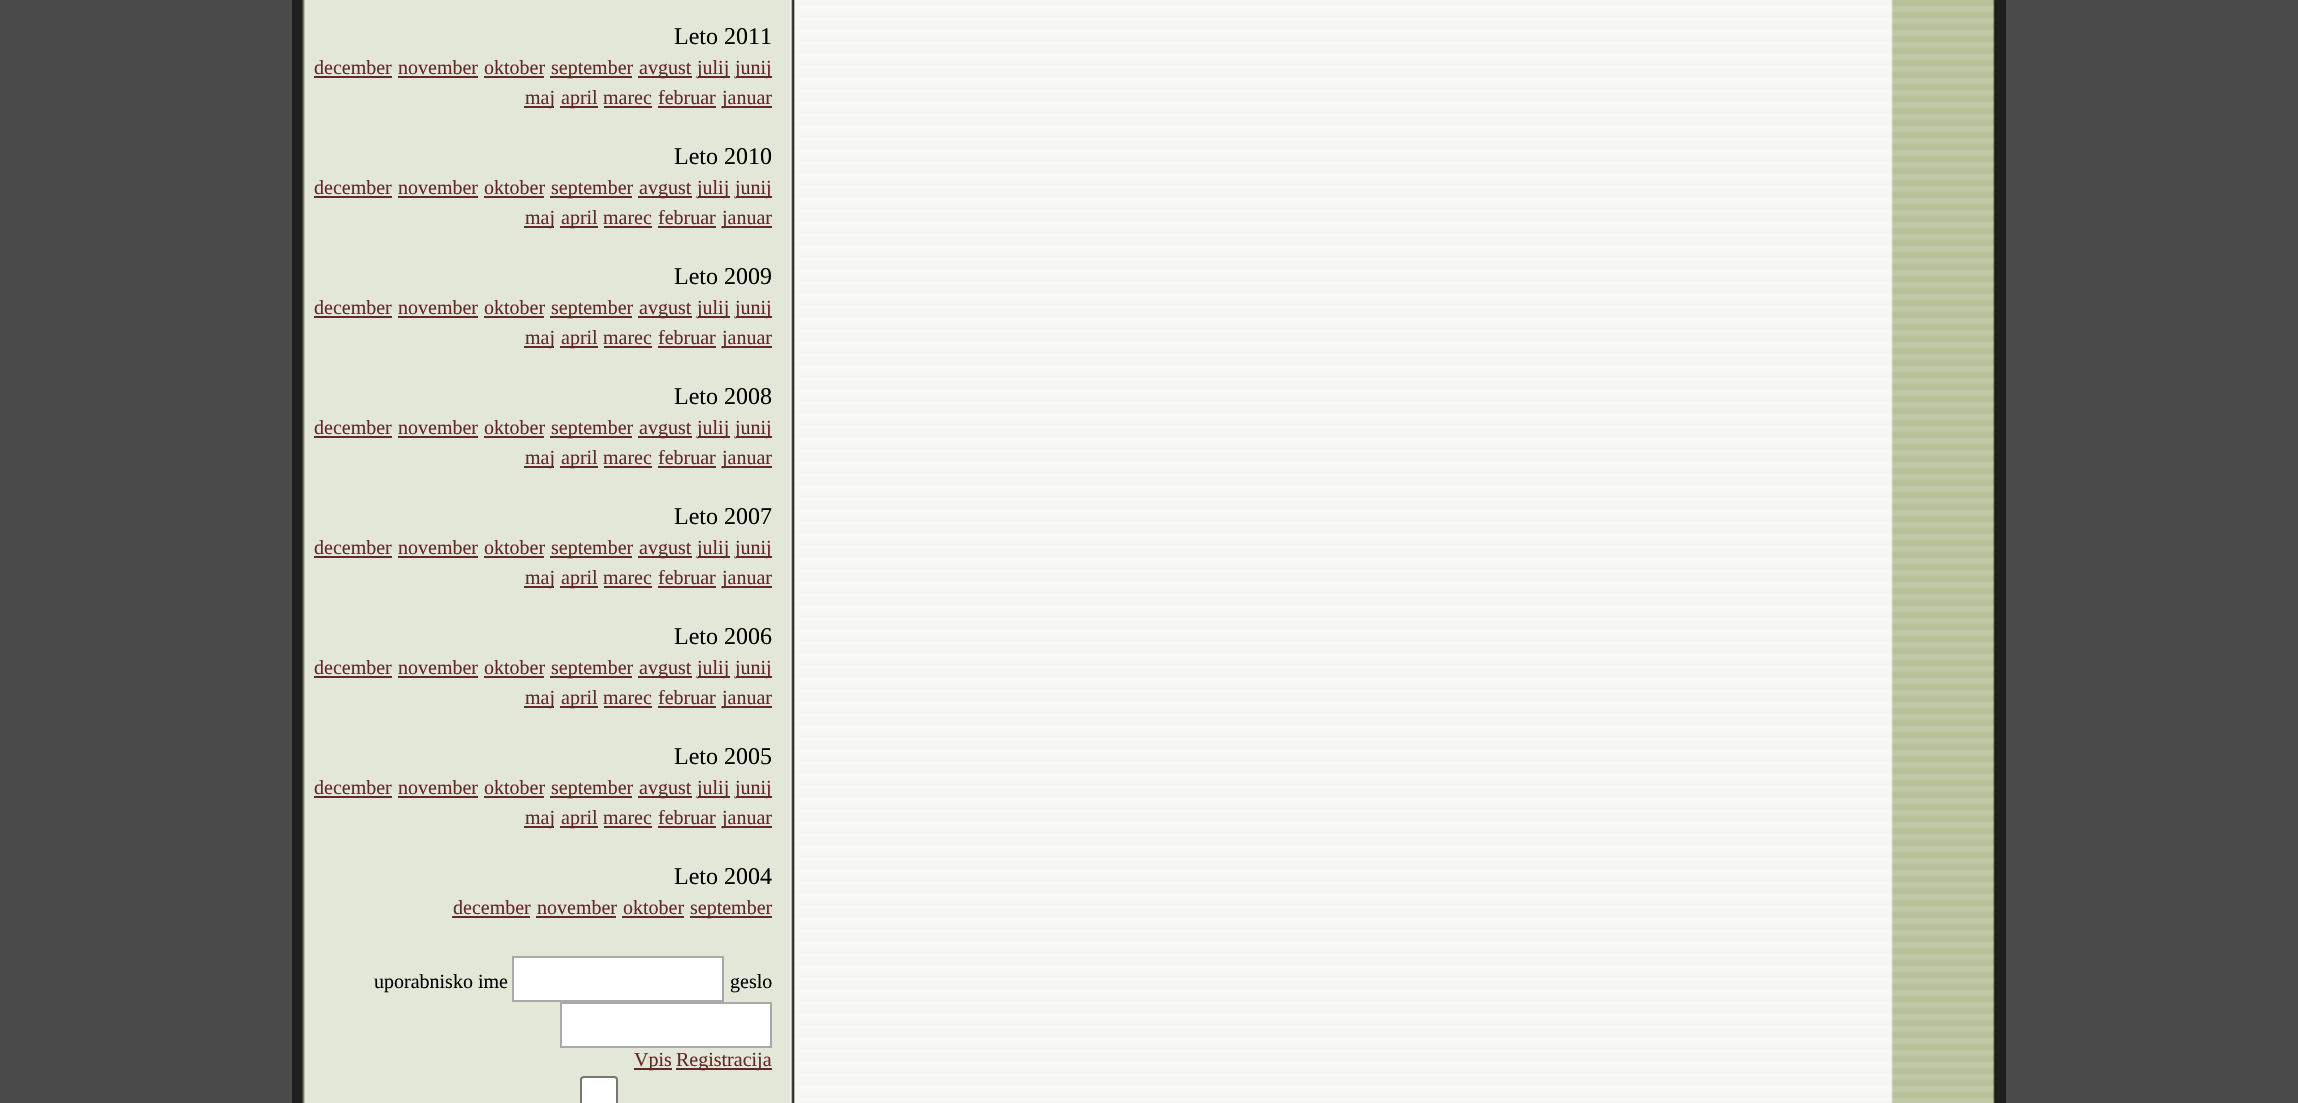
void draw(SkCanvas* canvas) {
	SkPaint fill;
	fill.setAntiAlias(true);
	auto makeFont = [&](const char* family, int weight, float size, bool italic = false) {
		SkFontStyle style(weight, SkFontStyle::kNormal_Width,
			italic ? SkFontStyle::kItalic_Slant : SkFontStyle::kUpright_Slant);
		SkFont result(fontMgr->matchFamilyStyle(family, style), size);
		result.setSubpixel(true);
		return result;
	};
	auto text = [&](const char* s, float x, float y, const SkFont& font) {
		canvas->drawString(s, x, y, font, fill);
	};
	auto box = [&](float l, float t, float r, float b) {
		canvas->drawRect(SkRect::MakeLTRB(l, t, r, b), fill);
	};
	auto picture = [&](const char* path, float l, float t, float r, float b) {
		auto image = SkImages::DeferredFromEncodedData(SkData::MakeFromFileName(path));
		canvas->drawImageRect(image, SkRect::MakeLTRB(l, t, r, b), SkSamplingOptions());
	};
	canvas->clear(0xFF4A4A4A);
	picture("image0.png", 302, 0, 1996, 1103);
	fill.setStyle(SkPaint::kStroke_Style);
	fill.setStrokeWidth(10);
	fill.setColor(0xFF1F1F1D);
	canvas->drawRect(SkRect::MakeLTRB(297, -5, 2001, 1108), fill);
	fill.setStyle(SkPaint::kFill_Style);
	fill.setColor(0xFF632929);
	box(314, 76, 392, 78);
	box(398, 76, 478, 78);
	box(484, 76, 544, 78);
	box(550, 76, 632, 78);
	box(638, 76, 692, 78);
	box(698, 76, 730, 78);
	box(736, 76, 772, 78);
	box(524, 106, 554, 108);
	box(560, 106, 598, 108);
	box(604, 106, 652, 108);
	box(658, 106, 716, 108);
	box(722, 106, 772, 108);
	box(314, 196, 392, 198);
	box(398, 196, 478, 198);
	box(484, 196, 544, 198);
	box(550, 196, 632, 198);
	box(638, 196, 692, 198);
	box(698, 196, 730, 198);
	box(736, 196, 772, 198);
	box(524, 226, 554, 228);
	box(560, 226, 598, 228);
	box(604, 226, 652, 228);
	box(658, 226, 716, 228);
	box(722, 226, 772, 228);
	box(314, 316, 392, 318);
	box(398, 316, 478, 318);
	box(484, 316, 544, 318);
	box(550, 316, 632, 318);
	box(638, 316, 692, 318);
	box(698, 316, 730, 318);
	box(736, 316, 772, 318);
	box(524, 346, 554, 348);
	box(560, 346, 598, 348);
	box(604, 346, 652, 348);
	box(658, 346, 716, 348);
	box(722, 346, 772, 348);
	box(314, 436, 392, 438);
	box(398, 436, 478, 438);
	box(484, 436, 544, 438);
	box(550, 436, 632, 438);
	box(638, 436, 692, 438);
	box(698, 436, 730, 438);
	box(736, 436, 772, 438);
	box(524, 466, 554, 468);
	box(560, 466, 598, 468);
	box(604, 466, 652, 468);
	box(658, 466, 716, 468);
	box(722, 466, 772, 468);
	box(314, 556, 392, 558);
	box(398, 556, 478, 558);
	box(484, 556, 544, 558);
	box(550, 556, 632, 558);
	box(638, 556, 692, 558);
	box(698, 556, 730, 558);
	box(736, 556, 772, 558);
	box(524, 586, 554, 588);
	box(560, 586, 598, 588);
	box(604, 586, 652, 588);
	box(658, 586, 716, 588);
	box(722, 586, 772, 588);
	box(314, 676, 392, 678);
	box(398, 676, 478, 678);
	box(484, 676, 544, 678);
	box(550, 676, 632, 678);
	box(638, 676, 692, 678);
	box(698, 676, 730, 678);
	box(736, 676, 772, 678);
	box(524, 706, 554, 708);
	box(560, 706, 598, 708);
	box(604, 706, 652, 708);
	box(658, 706, 716, 708);
	box(722, 706, 772, 708);
	box(314, 796, 392, 798);
	box(398, 796, 478, 798);
	box(484, 796, 544, 798);
	box(550, 796, 632, 798);
	box(638, 796, 692, 798);
	box(698, 796, 730, 798);
	box(736, 796, 772, 798);
	box(524, 826, 554, 828);
	box(560, 826, 598, 828);
	box(604, 826, 652, 828);
	box(658, 826, 716, 828);
	box(722, 826, 772, 828);
	box(452, 916, 530, 918);
	box(536, 916, 616, 918);
	box(622, 916, 684, 918);
	box(690, 916, 772, 918);
	fill.setColor(0xFFFFFFFF);
	canvas->drawRect(SkRect::MakeLTRB(513, 957, 723, 1001), fill);
	fill.setStyle(SkPaint::kStroke_Style);
	fill.setStrokeWidth(2);
	fill.setColor(0xFFA9A9A9);
	canvas->drawRect(SkRect::MakeLTRB(513, 957, 723, 1001), fill);
	fill.setStyle(SkPaint::kFill_Style);
	fill.setColor(0xFFFFFFFF);
	canvas->drawRect(SkRect::MakeLTRB(561, 1003, 771, 1047), fill);
	fill.setStyle(SkPaint::kStroke_Style);
	fill.setColor(0xFFA9A9A9);
	canvas->drawRect(SkRect::MakeLTRB(561, 1003, 771, 1047), fill);
	fill.setStyle(SkPaint::kFill_Style);
	fill.setColor(0xFF632929);
	box(634, 1068, 672, 1070);
	box(676, 1068, 772, 1070);
	fill.setColor(0xFFFFFFFF);
	canvas->drawRoundRect(SkRect::MakeLTRB(581, 1077, 617, 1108), 3, 3, fill);
	fill.setStyle(SkPaint::kStroke_Style);
	fill.setColor(0xFF767676);
	canvas->drawRoundRect(SkRect::MakeLTRB(581, 1077, 617, 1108), 3, 3, fill);
	auto font1 = makeFont("Liberation Serif", 400, 24);
	fill.setStyle(SkPaint::kFill_Style);
	fill.setColor(0xFF000000);
	text("Leto 2011", 674, 44, font1);
	auto font2 = makeFont("Liberation Serif", 400, 20);
	fill.setColor(0xFF632929);
	text("december", 314, 74, font2);
	text("november", 398, 74, font2);
	text("oktober", 484, 74, font2);
	text("september", 551, 74, font2);
	text("avgust", 639, 74, font2);
	text("julij", 697, 74, font2);
	text("junij", 735, 74, font2);
	text("maj", 525, 104, font2);
	text("april", 561, 104, font2);
	text("marec", 603, 104, font2);
	text("februar", 658, 104, font2);
	text("januar", 722, 104, font2);
	fill.setColor(0xFF000000);
	text("Leto 2010", 674, 164, font1);
	fill.setColor(0xFF632929);
	text("december", 314, 194, font2);
	text("november", 398, 194, font2);
	text("oktober", 484, 194, font2);
	text("september", 551, 194, font2);
	text("avgust", 639, 194, font2);
	text("julij", 697, 194, font2);
	text("junij", 735, 194, font2);
	text("maj", 525, 224, font2);
	text("april", 561, 224, font2);
	text("marec", 603, 224, font2);
	text("februar", 658, 224, font2);
	text("januar", 722, 224, font2);
	fill.setColor(0xFF000000);
	text("Leto 2009", 674, 284, font1);
	fill.setColor(0xFF632929);
	text("december", 314, 314, font2);
	text("november", 398, 314, font2);
	text("oktober", 484, 314, font2);
	text("september", 551, 314, font2);
	text("avgust", 639, 314, font2);
	text("julij", 697, 314, font2);
	text("junij", 735, 314, font2);
	text("maj", 525, 344, font2);
	text("april", 561, 344, font2);
	text("marec", 603, 344, font2);
	text("februar", 658, 344, font2);
	text("januar", 722, 344, font2);
	fill.setColor(0xFF000000);
	text("Leto 2008", 674, 404, font1);
	fill.setColor(0xFF632929);
	text("december", 314, 434, font2);
	text("november", 398, 434, font2);
	text("oktober", 484, 434, font2);
	text("september", 551, 434, font2);
	text("avgust", 639, 434, font2);
	text("julij", 697, 434, font2);
	text("junij", 735, 434, font2);
	text("maj", 525, 464, font2);
	text("april", 561, 464, font2);
	text("marec", 603, 464, font2);
	text("februar", 658, 464, font2);
	text("januar", 722, 464, font2);
	fill.setColor(0xFF000000);
	text("Leto 2007", 674, 524, font1);
	fill.setColor(0xFF632929);
	text("december", 314, 554, font2);
	text("november", 398, 554, font2);
	text("oktober", 484, 554, font2);
	text("september", 551, 554, font2);
	text("avgust", 639, 554, font2);
	text("julij", 697, 554, font2);
	text("junij", 735, 554, font2);
	text("maj", 525, 584, font2);
	text("april", 561, 584, font2);
	text("marec", 603, 584, font2);
	text("februar", 658, 584, font2);
	text("januar", 722, 584, font2);
	fill.setColor(0xFF000000);
	text("Leto 2006", 674, 644, font1);
	fill.setColor(0xFF632929);
	text("december", 314, 674, font2);
	text("november", 398, 674, font2);
	text("oktober", 484, 674, font2);
	text("september", 551, 674, font2);
	text("avgust", 639, 674, font2);
	text("julij", 697, 674, font2);
	text("junij", 735, 674, font2);
	text("maj", 525, 704, font2);
	text("april", 561, 704, font2);
	text("marec", 603, 704, font2);
	text("februar", 658, 704, font2);
	text("januar", 722, 704, font2);
	fill.setColor(0xFF000000);
	text("Leto 2005", 674, 764, font1);
	fill.setColor(0xFF632929);
	text("december", 314, 794, font2);
	text("november", 398, 794, font2);
	text("oktober", 484, 794, font2);
	text("september", 551, 794, font2);
	text("avgust", 639, 794, font2);
	text("julij", 697, 794, font2);
	text("junij", 735, 794, font2);
	text("maj", 525, 824, font2);
	text("april", 561, 824, font2);
	text("marec", 603, 824, font2);
	text("februar", 658, 824, font2);
	text("januar", 722, 824, font2);
	fill.setColor(0xFF000000);
	text("Leto 2004", 674, 884, font1);
	fill.setColor(0xFF632929);
	text("december", 453, 914, font2);
	text("november", 537, 914, font2);
	text("oktober", 623, 914, font2);
	text("september", 690, 914, font2);
	fill.setColor(0xFF000000);
	text("uporabnisko ime", 374, 988, font2);
	text("geslo", 730, 988, font2);
	fill.setColor(0xFF632929);
	text("Vpis", 634, 1066, font2);
	text("Registracija", 676, 1066, font2);
}
